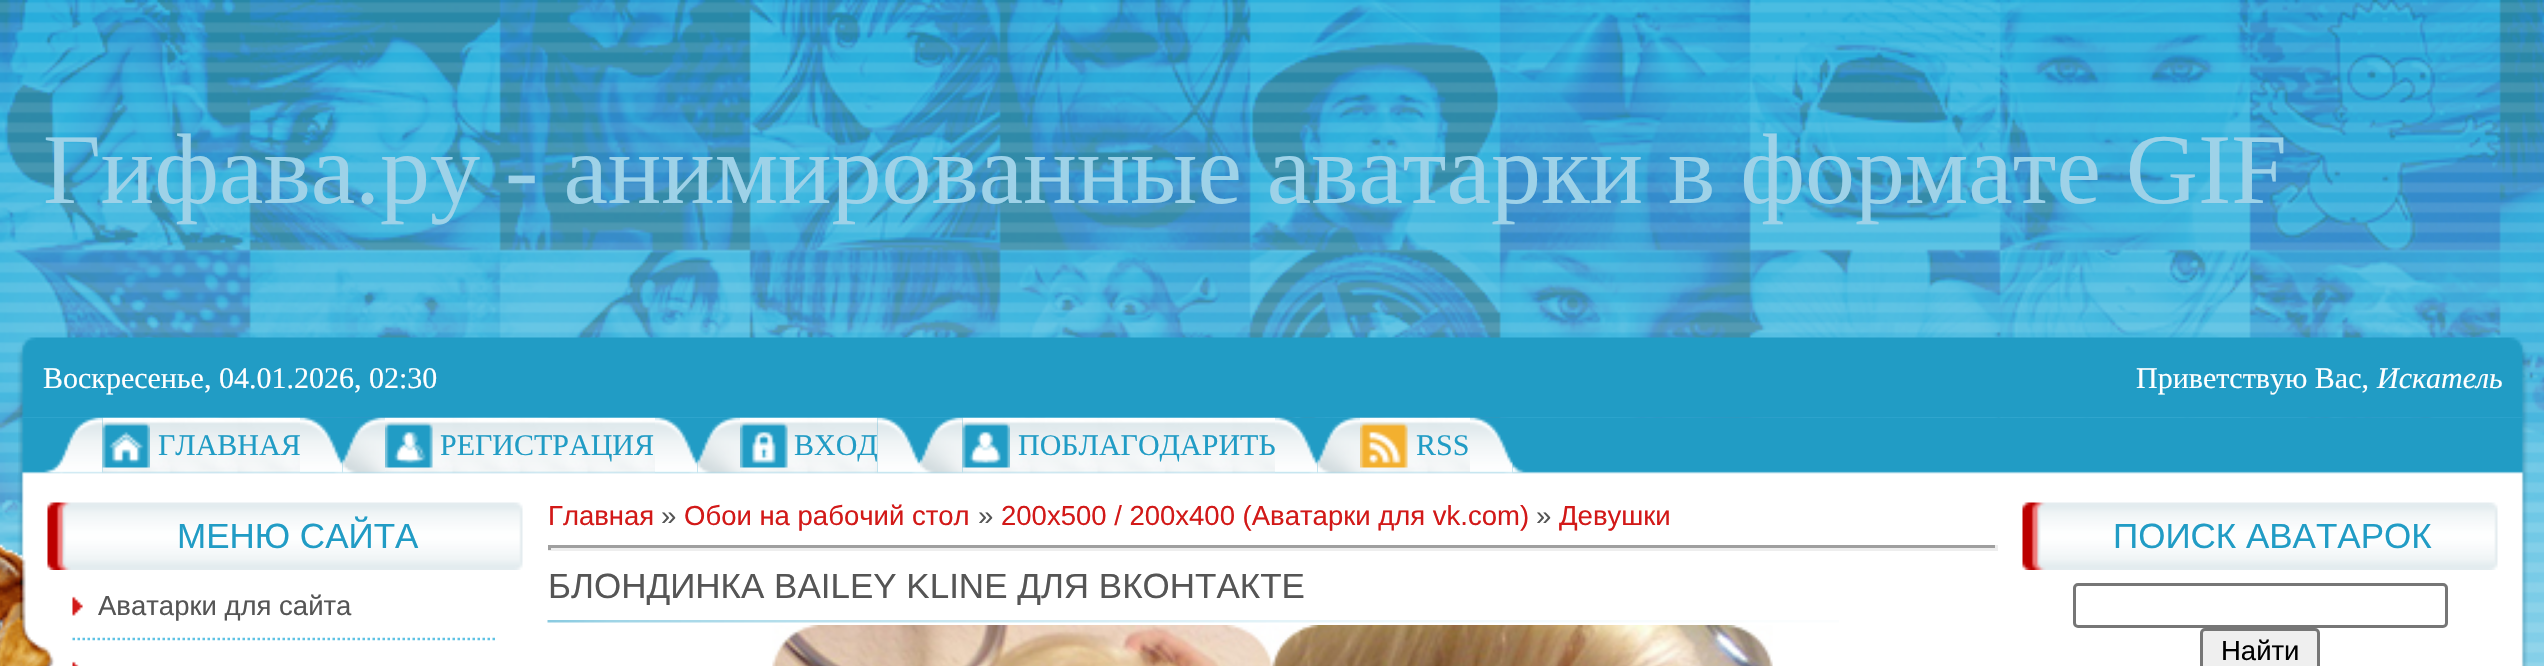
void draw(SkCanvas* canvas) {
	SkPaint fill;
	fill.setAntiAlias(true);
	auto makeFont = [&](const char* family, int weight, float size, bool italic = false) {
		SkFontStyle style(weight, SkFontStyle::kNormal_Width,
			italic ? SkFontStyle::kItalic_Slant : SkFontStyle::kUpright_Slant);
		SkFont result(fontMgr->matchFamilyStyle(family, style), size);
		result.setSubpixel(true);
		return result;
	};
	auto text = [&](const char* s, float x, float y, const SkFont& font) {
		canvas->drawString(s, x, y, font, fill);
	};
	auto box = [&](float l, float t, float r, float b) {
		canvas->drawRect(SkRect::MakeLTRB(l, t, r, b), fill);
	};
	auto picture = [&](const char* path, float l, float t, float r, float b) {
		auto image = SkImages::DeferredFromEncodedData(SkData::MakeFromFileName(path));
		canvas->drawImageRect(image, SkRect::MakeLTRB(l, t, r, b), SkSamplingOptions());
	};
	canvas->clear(0xFFFFFFFF);
	picture("image0.png", 0, 0, 2544, 666);
	picture("image25.png", 17, 475, 2528, 666);
	picture("image26.png", 47, 502, 523, 570);
	picture("image2.png", 0, 544, 55, 666);
	picture("image3.png", 18, 417, 2528, 475);
	picture("image4.png", 44, 417, 103, 474);
	picture("image5.png", 102, 417, 300, 474);
	picture("image6.png", 102, 422, 150, 468);
	picture("image7.png", 300, 417, 343, 474);
	picture("image8.png", 342, 417, 385, 474);
	picture("image9.png", 385, 417, 655, 474);
	picture("image10.png", 385, 422, 433, 468);
	picture("image11.png", 655, 417, 698, 474);
	picture("image12.png", 697, 417, 740, 474);
	picture("image13.png", 740, 417, 878, 474);
	picture("image14.png", 740, 422, 788, 468);
	picture("image16.png", 920, 417, 963, 474);
	picture("image17.png", 962, 417, 1275, 474);
	picture("image18.png", 962, 422, 1010, 468);
	picture("image19.png", 1275, 417, 1318, 474);
	picture("image20.png", 1317, 417, 1360, 474);
	picture("image21.png", 1360, 417, 1470, 474);
	picture("image22.png", 1360, 422, 1408, 468);
	picture("image23.png", 1470, 417, 1513, 474);
	picture("image24.png", 1512, 464, 1525, 473);
	fill.setStyle(SkPaint::kStroke_Style);
	fill.setStrokeWidth(2.5f);
	fill.setColor(0xFF5EC2E4);
	fill.setPathEffect(SkDashPathEffect::Make({{2.5f, 2.5f}}, 0));
	canvas->drawPath(SkPathBuilder().moveTo(72.5f, 639).lineTo(497.5f, 639).detach(), fill);
	fill.setPathEffect(nullptr);
	picture("image27.png", 72, 596, 83, 616);
	picture("image28.png", 72, 661, 79, 666);
	fill.setStyle(SkPaint::kFill_Style);
	fill.setColor(0xFF9F9F9F);
	box(548, 545, 1998, 548);
	fill.setColor(0xFFEEEEEE);
	box(1995, 545, 1998, 550);
	box(548, 548, 1998, 551);
	fill.setColor(0xFF9F9F9F);
	box(548, 545, 551, 550);
	picture("image29.png", 547, 620, 1839, 623);
	picture("image30.png", 772, 625, 1273, 666);
	picture("image31.png", 1272, 625, 1773, 666);
	picture("image32.png", 2022, 502, 2498, 570);
	fill.setStyle(SkPaint::kStroke_Style);
	fill.setStrokeWidth(3);
	fill.setColor(0xFF767676);
	canvas->drawRoundRect(SkRect::MakeLTRB(2074.5f, 584.5f, 2446.5f, 626.5f), 3.5f, 3.5f, fill);
	fill.setStyle(SkPaint::kFill_Style);
	fill.setColor(0xFFEFEFEF);
	canvas->drawRoundRect(SkRect::MakeLTRB(2201.5f, 629.5f, 2318.5f, 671.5f), 3.5f, 3.5f, fill);
	fill.setStyle(SkPaint::kStroke_Style);
	fill.setColor(0xFF767676);
	canvas->drawRoundRect(SkRect::MakeLTRB(2201.5f, 629.5f, 2318.5f, 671.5f), 3.5f, 3.5f, fill);
	auto font1 = makeFont("Liberation Serif", 400, 100);
	fill.setStyle(SkPaint::kFill_Style);
	fill.setColor(0xFF9ED2E8);
	text("Гифава.ру - анимированные аватарки в формате GIF", 43, 203, font1);
	auto font2 = makeFont("Liberation Serif", 400, 30);
	fill.setColor(0xFF219CC5);
	text("ГЛАВНАЯ", 158, 455, font2);
	text("РЕГИСТРАЦИЯ", 440, 455, font2);
	text("ВХОД", 794, 455, font2);
	picture("image15.png", 877, 417, 920, 474);
	picture("image1.png", 17, 337, 2528, 418);
	auto font3 = makeFont("Liberation Serif", 400, 30, true);
	fill.setColor(0xFFFFFFFF);
	text("Искатель", 2377, 388, font3);
	text("Приветствую Вас,", 2136, 388, font2);
	text("Воскресенье, 04.01.2026, 02:30", 43, 388, font2);
	fill.setColor(0xFF219CC5);
	text("ПОБЛАГОДАРИТЬ", 1018, 455, font2);
	text("RSS", 1416, 455, font2);
	auto font4 = makeFont("Liberation Sans", 400, 35);
	text("МЕНЮ САЙТА", 177, 548, font4);
	auto font5 = makeFont("Liberation Sans", 400, 27.5f);
	fill.setColor(0xFF555555);
	text("Аватарки для сайта", 98, 615, font5);
	fill.setColor(0xFFD21918);
	text("Главная", 548, 525, font5);
	fill.setColor(0xFF555555);
	text("»", 661, 525, font5);
	fill.setColor(0xFFD21918);
	text("Обои на рабочий стол", 684, 525, font5);
	fill.setColor(0xFF555555);
	text("»", 978, 525, font5);
	fill.setColor(0xFFD21918);
	text("200x500 / 200x400 (Аватарки для vk.com)", 1001, 525, font5);
	fill.setColor(0xFF555555);
	text("»", 1536, 525, font5);
	fill.setColor(0xFFD21918);
	text("Девушки", 1559, 525, font5);
	fill.setColor(0xFF555555);
	text("БЛОНДИНКА BAILEY KLINE ДЛЯ ВКОНТАКТЕ", 548, 598, font4);
	fill.setColor(0xFF219CC5);
	text("ПОИСК АВАТАРОК", 2113, 548, font4);
	fill.setColor(0xFF000000);
	text("Найти", 2221, 660, font5);
}
